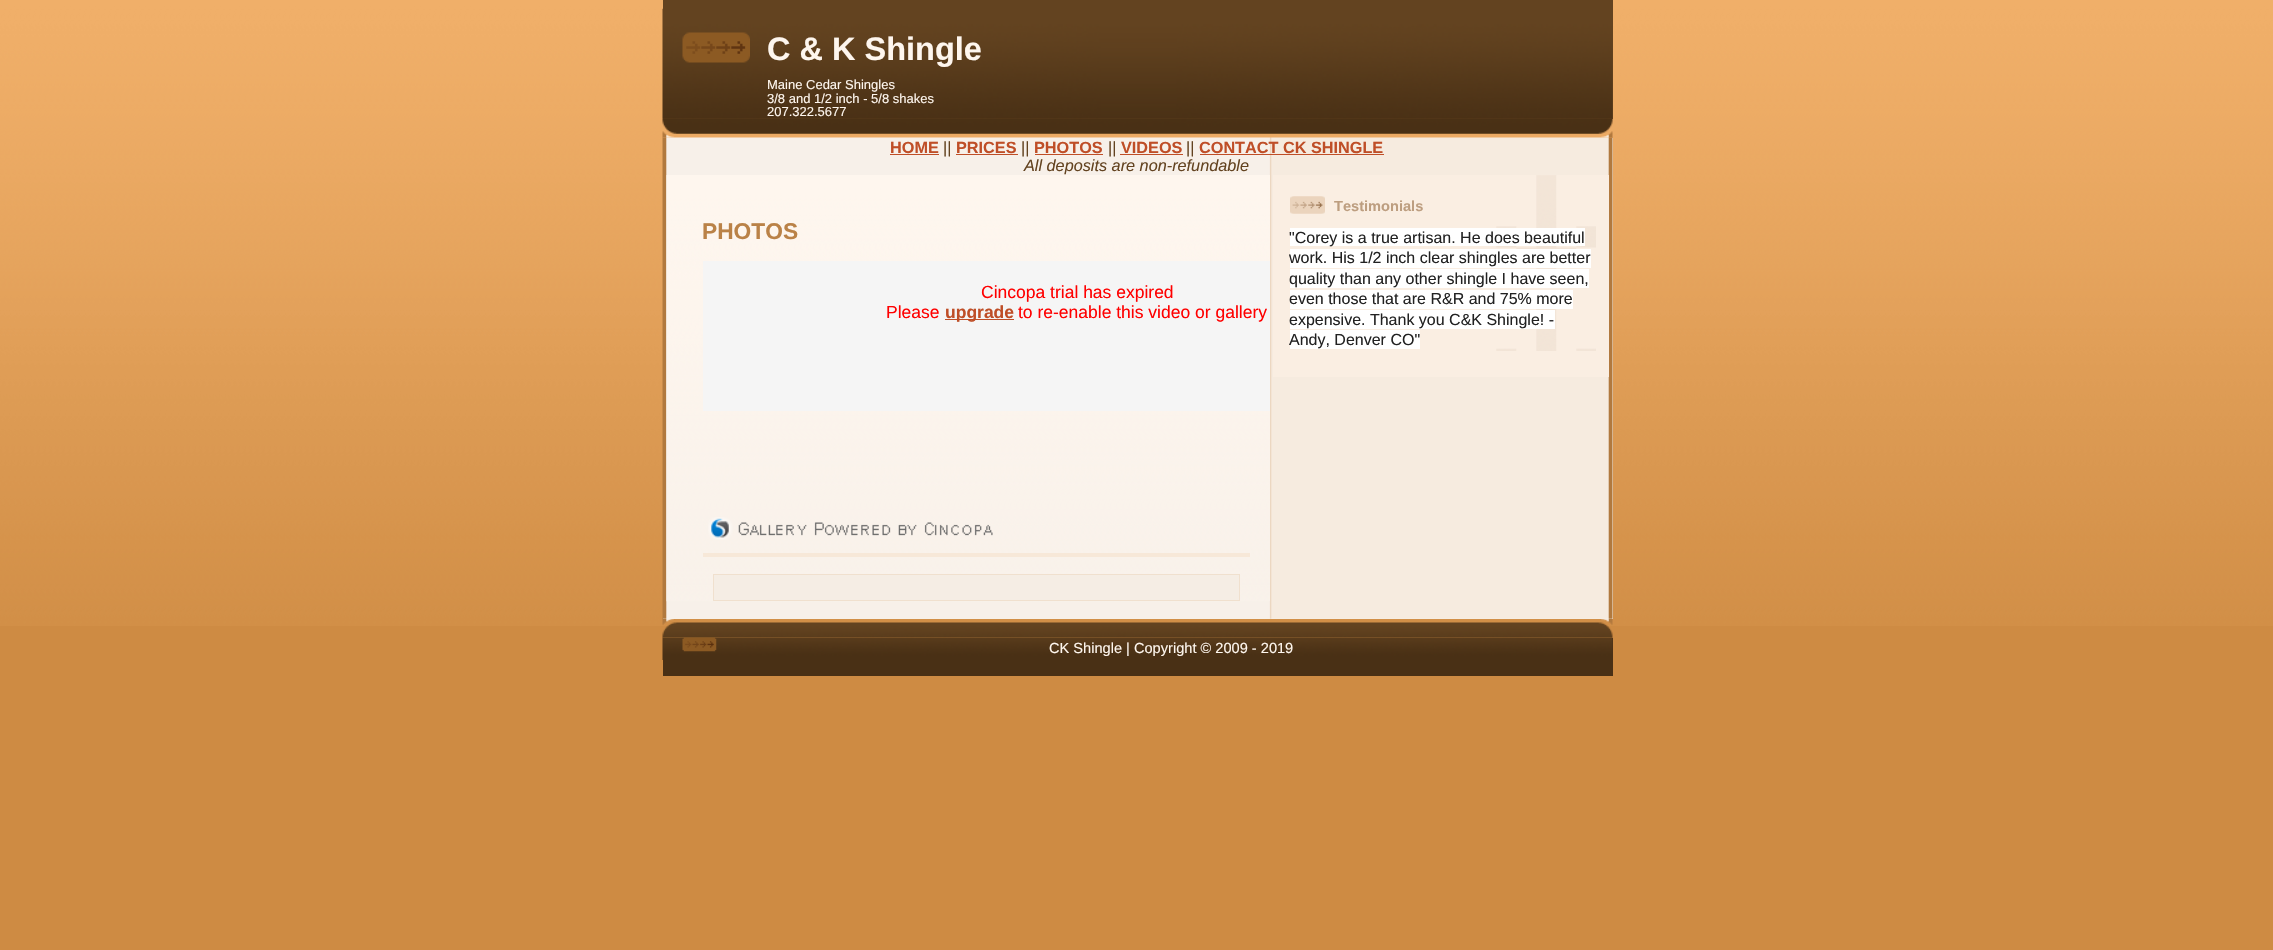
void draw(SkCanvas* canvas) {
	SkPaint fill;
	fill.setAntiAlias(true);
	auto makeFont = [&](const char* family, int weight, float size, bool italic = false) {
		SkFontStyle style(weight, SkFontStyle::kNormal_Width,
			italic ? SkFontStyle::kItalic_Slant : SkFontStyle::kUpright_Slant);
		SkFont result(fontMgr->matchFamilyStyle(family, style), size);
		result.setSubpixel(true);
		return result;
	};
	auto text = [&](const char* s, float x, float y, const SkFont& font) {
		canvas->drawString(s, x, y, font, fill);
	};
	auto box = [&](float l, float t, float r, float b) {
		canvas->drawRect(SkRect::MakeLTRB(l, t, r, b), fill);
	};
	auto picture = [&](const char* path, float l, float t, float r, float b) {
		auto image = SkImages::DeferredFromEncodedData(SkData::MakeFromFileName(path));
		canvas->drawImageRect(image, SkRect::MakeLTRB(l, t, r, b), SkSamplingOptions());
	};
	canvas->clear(0xFFCE8B43);
	picture("image0.png", 0, 0, 2273, 626);
	picture("image1.png", 662, 118, 1613, 138);
	fill.setColor(0xFF634320);
	box(663, 0, 1613, 119);
	picture("image2.png", 662, 8, 1613, 119);
	picture("image3.png", 682, 32, 750, 63);
	picture("image9.png", 662, 618, 1613, 638);
	fill.setColor(0xFFF7F0E9);
	box(663, 138, 1613, 619);
	picture("image4.png", 662, 137, 1613, 619);
	fill.setColor(0xFFBF4E27);
	box(890, 154, 939, 155);
	box(956, 154, 1018, 155);
	box(1035, 154, 1103, 155);
	box(1120, 154, 1183, 155);
	box(1200, 154, 1384, 155);
	picture("image5.png", 666, 175, 1270, 602);
	fill.setColor(0xFFF7E8D8);
	box(703, 553, 1250, 557);
	fill.setColor(0xFFF5F5F5);
	box(703, 261, 1270, 411);
	fill.setColor(0xFFBF4E27);
	box(945, 319, 1014, 320);
	picture("image6.png", 708, 517, 993, 540);
	fill.setColor(0xFFF5EDE4);
	canvas->drawRect(SkRect::MakeLTRB(713.5f, 574.5f, 1239.5f, 600.5f), fill);
	fill.setStyle(SkPaint::kStroke_Style);
	fill.setStrokeWidth(1);
	fill.setColor(0xFFF0E0CE);
	canvas->drawRect(SkRect::MakeLTRB(713.5f, 574.5f, 1239.5f, 600.5f), fill);
	fill.setStyle(SkPaint::kFill_Style);
	fill.setColor(0xFFFAEEE2);
	box(1273, 175, 1609, 377);
	picture("image7.png", 1496, 175, 1596, 351);
	picture("image8.png", 1290, 196, 1325, 214);
	fill.setColor(0xFFFFFFFF);
	box(1290, 228, 1585, 246);
	box(1290, 249, 1591, 268);
	box(1290, 269, 1589, 288);
	box(1290, 290, 1573, 309);
	box(1290, 310, 1555, 329);
	box(1290, 330, 1420, 349);
	fill.setColor(0xFF493015);
	box(663, 638, 1613, 676);
	picture("image10.png", 662, 637, 1613, 660);
	picture("image11.png", 682, 637, 717, 652);
	auto font1 = makeFont("Liberation Sans", 700, 32.5f);
	fill.setColor(0xFFFEF6EE);
	text("C & K Shingle", 767, 60, font1);
	auto font2 = makeFont("Liberation Sans", 400, 13);
	text("Maine Cedar Shingles", 767, 89, font2);
	text("3/8 and 1/2 inch - 5/8 shakes", 767, 103, font2);
	text("207.322.5677", 767, 116, font2);
	auto font3 = makeFont("Liberation Sans", 700, 16.25f);
	fill.setColor(0xFFBF4E27);
	text("HOME", 890, 153, font3);
	auto font4 = makeFont("Liberation Sans", 400, 16.25f);
	fill.setColor(0xFF634320);
	text("||", 943, 153, font4);
	fill.setColor(0xFFBF4E27);
	text("PRICES", 956, 153, font3);
	fill.setColor(0xFF634320);
	text("||", 1021, 153, font4);
	fill.setColor(0xFFBF4E27);
	text("PHOTOS", 1034, 153, font3);
	fill.setColor(0xFF634320);
	text("||", 1108, 153, font4);
	fill.setColor(0xFFBF4E27);
	text("VIDEOS", 1121, 153, font3);
	fill.setColor(0xFF634320);
	text("||", 1186, 153, font4);
	fill.setColor(0xFFBF4E27);
	text("CONTACT CK SHINGLE", 1199, 153, font3);
	auto font5 = makeFont("Liberation Sans", 400, 16.25f, true);
	fill.setColor(0xFF634320);
	text("All deposits are non-refundable", 1024, 171, font5);
	auto font6 = makeFont("Liberation Sans", 700, 22.75f);
	fill.setColor(0xFFBA8247);
	text("PHOTOS", 702, 239, font6);
	auto font7 = makeFont("Liberation Sans", 400, 17.5f);
	fill.setColor(0xFFFF0000);
	text("Cincopa trial has expired", 981, 298, font7);
	text("Please", 886, 318, font7);
	auto font8 = makeFont("Liberation Sans", 700, 17.5f);
	fill.setColor(0xFFBF4E27);
	text("upgrade", 945, 318, font8);
	fill.setColor(0xFFFF0000);
	text("to re-enable this video or gallery", 1018, 318, font7);
	auto font9 = makeFont("Liberation Sans", 700, 14.6f);
	fill.setColor(0xFFBD9E80);
	text("Testimonials", 1334, 211, font9);
	auto font10 = makeFont("Liberation Sans", 400, 16);
	fill.setColor(0xFF222222);
	text("\"Corey is a true artisan. He does beautiful", 1289, 243, font10);
	text("work. His 1/2 inch clear shingles are better", 1289, 263, font10);
	text("quality than any other shingle I have seen,", 1289, 284, font10);
	text("even those that are R&R and 75% more", 1289, 304, font10);
	text("expensive. Thank you C&K Shingle! -", 1289, 325, font10);
	text("Andy, Denver CO\"", 1289, 345, font10);
	auto font11 = makeFont("Liberation Sans", 400, 14.6f);
	fill.setColor(0xFFFEF6EE);
	text("CK Shingle | Copyright © 2009 - 2019", 1049, 653, font11);
}
